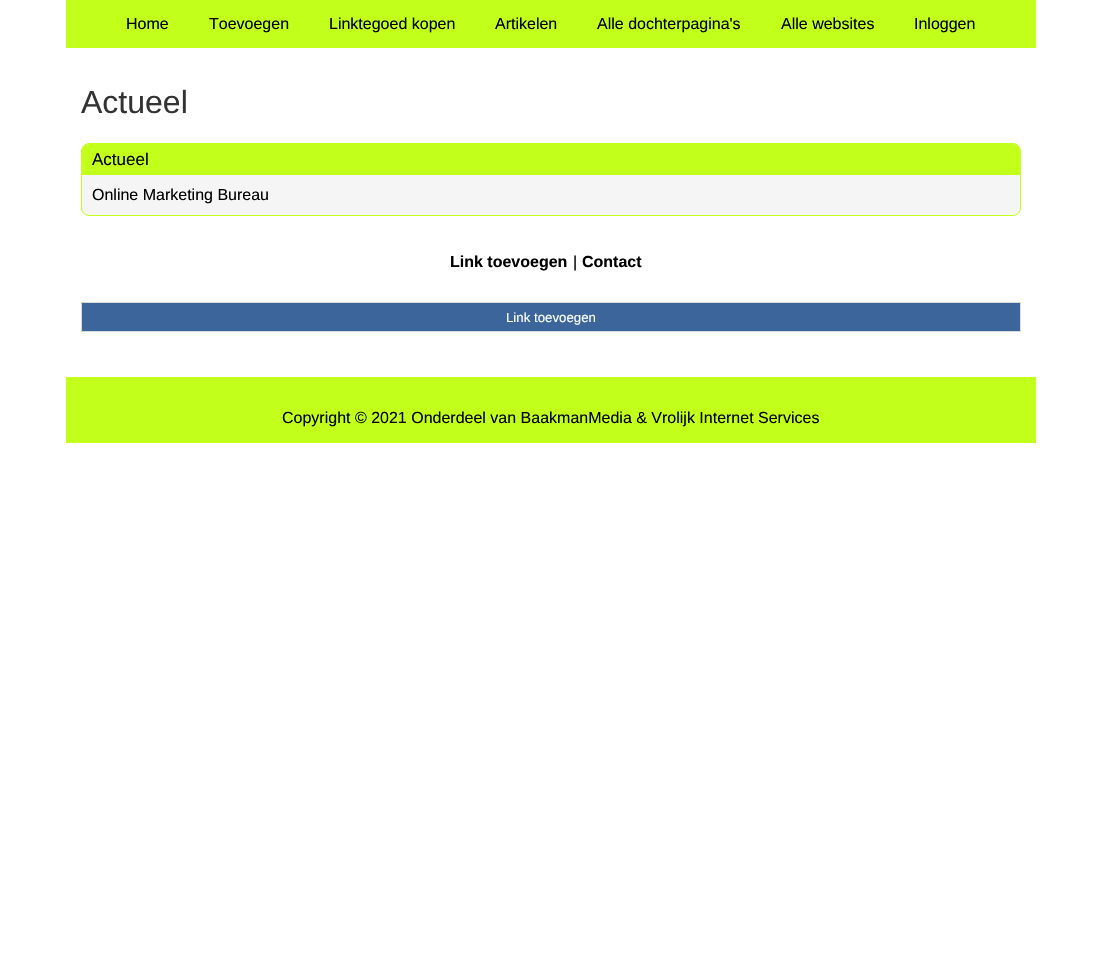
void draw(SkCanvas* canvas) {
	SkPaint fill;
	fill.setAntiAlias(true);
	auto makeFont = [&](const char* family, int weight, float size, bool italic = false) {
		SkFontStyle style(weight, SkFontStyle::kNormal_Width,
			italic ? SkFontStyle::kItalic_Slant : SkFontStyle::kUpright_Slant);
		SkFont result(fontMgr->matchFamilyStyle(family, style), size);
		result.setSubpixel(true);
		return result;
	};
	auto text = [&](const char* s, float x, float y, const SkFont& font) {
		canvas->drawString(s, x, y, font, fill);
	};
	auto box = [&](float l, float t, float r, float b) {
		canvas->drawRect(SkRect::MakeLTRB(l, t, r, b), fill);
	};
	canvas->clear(0xFFFFFFFF);
	fill.setColor(0xFFC2FF1A);
	box(66, 0, 1036, 48);
	fill.setColor(0xFFF5F5F5);
	canvas->drawRoundRect(SkRect::MakeLTRB(81.5f, 143.5f, 1020.5f, 215.5f), 7.5f, 7.5f, fill);
	fill.setStyle(SkPaint::kStroke_Style);
	fill.setStrokeWidth(1);
	fill.setColor(0xFFC2FF1A);
	canvas->drawRoundRect(SkRect::MakeLTRB(81.5f, 143.5f, 1020.5f, 215.5f), 7.5f, 7.5f, fill);
	fill.setStyle(SkPaint::kFill_Style);
	canvas->drawPath(SkPathBuilder().moveTo(89, 144).lineTo(1013, 144).cubicTo(1017, 144, 1020, 147, 1020, 151).lineTo(1020, 175).lineTo(82, 175).lineTo(82, 151).cubicTo(82, 147, 85, 144, 89, 144).close().detach(), fill);
	fill.setColor(0xFF3B659B);
	canvas->drawRect(SkRect::MakeLTRB(81.5f, 302.5f, 1020.5f, 331.5f), fill);
	fill.setStyle(SkPaint::kStroke_Style);
	fill.setColor(0xFFDADADA);
	canvas->drawRect(SkRect::MakeLTRB(81.5f, 302.5f, 1020.5f, 331.5f), fill);
	fill.setStyle(SkPaint::kFill_Style);
	fill.setColor(0xFFC2FF1A);
	box(66, 377, 1036, 443);
	auto font1 = makeFont("Liberation Sans", 400, 16);
	fill.setColor(0xFF000000);
	text("Home", 126, 29, font1);
	text("Toevoegen", 209, 29, font1);
	text("Linktegoed kopen", 329, 29, font1);
	text("Artikelen", 495, 29, font1);
	text("Alle dochterpagina's", 597, 29, font1);
	text("Alle websites", 781, 29, font1);
	text("Inloggen", 914, 29, font1);
	auto font2 = makeFont("Liberation Sans", 400, 32);
	fill.setColor(0xFF333333);
	text("Actueel", 81, 113, font2);
	auto font3 = makeFont("Liberation Sans", 400, 17);
	fill.setColor(0xFF000000);
	text("Actueel", 92, 165, font3);
	text("Online Marketing Bureau", 92, 200, font1);
	auto font4 = makeFont("Liberation Sans", 700, 16);
	text("Link toevoegen", 450, 267, font4);
	text("|", 573, 267, font1);
	text("Contact", 582, 267, font4);
	auto font5 = makeFont("Liberation Sans", 400, 13.25f);
	fill.setColor(0xFFFFFFFF);
	text("Link toevoegen", 506, 322, font5);
	fill.setColor(0xFF000000);
	text("Copyright © 2021 Onderdeel van BaakmanMedia & Vrolijk Internet Services", 282, 423, font1);
}
